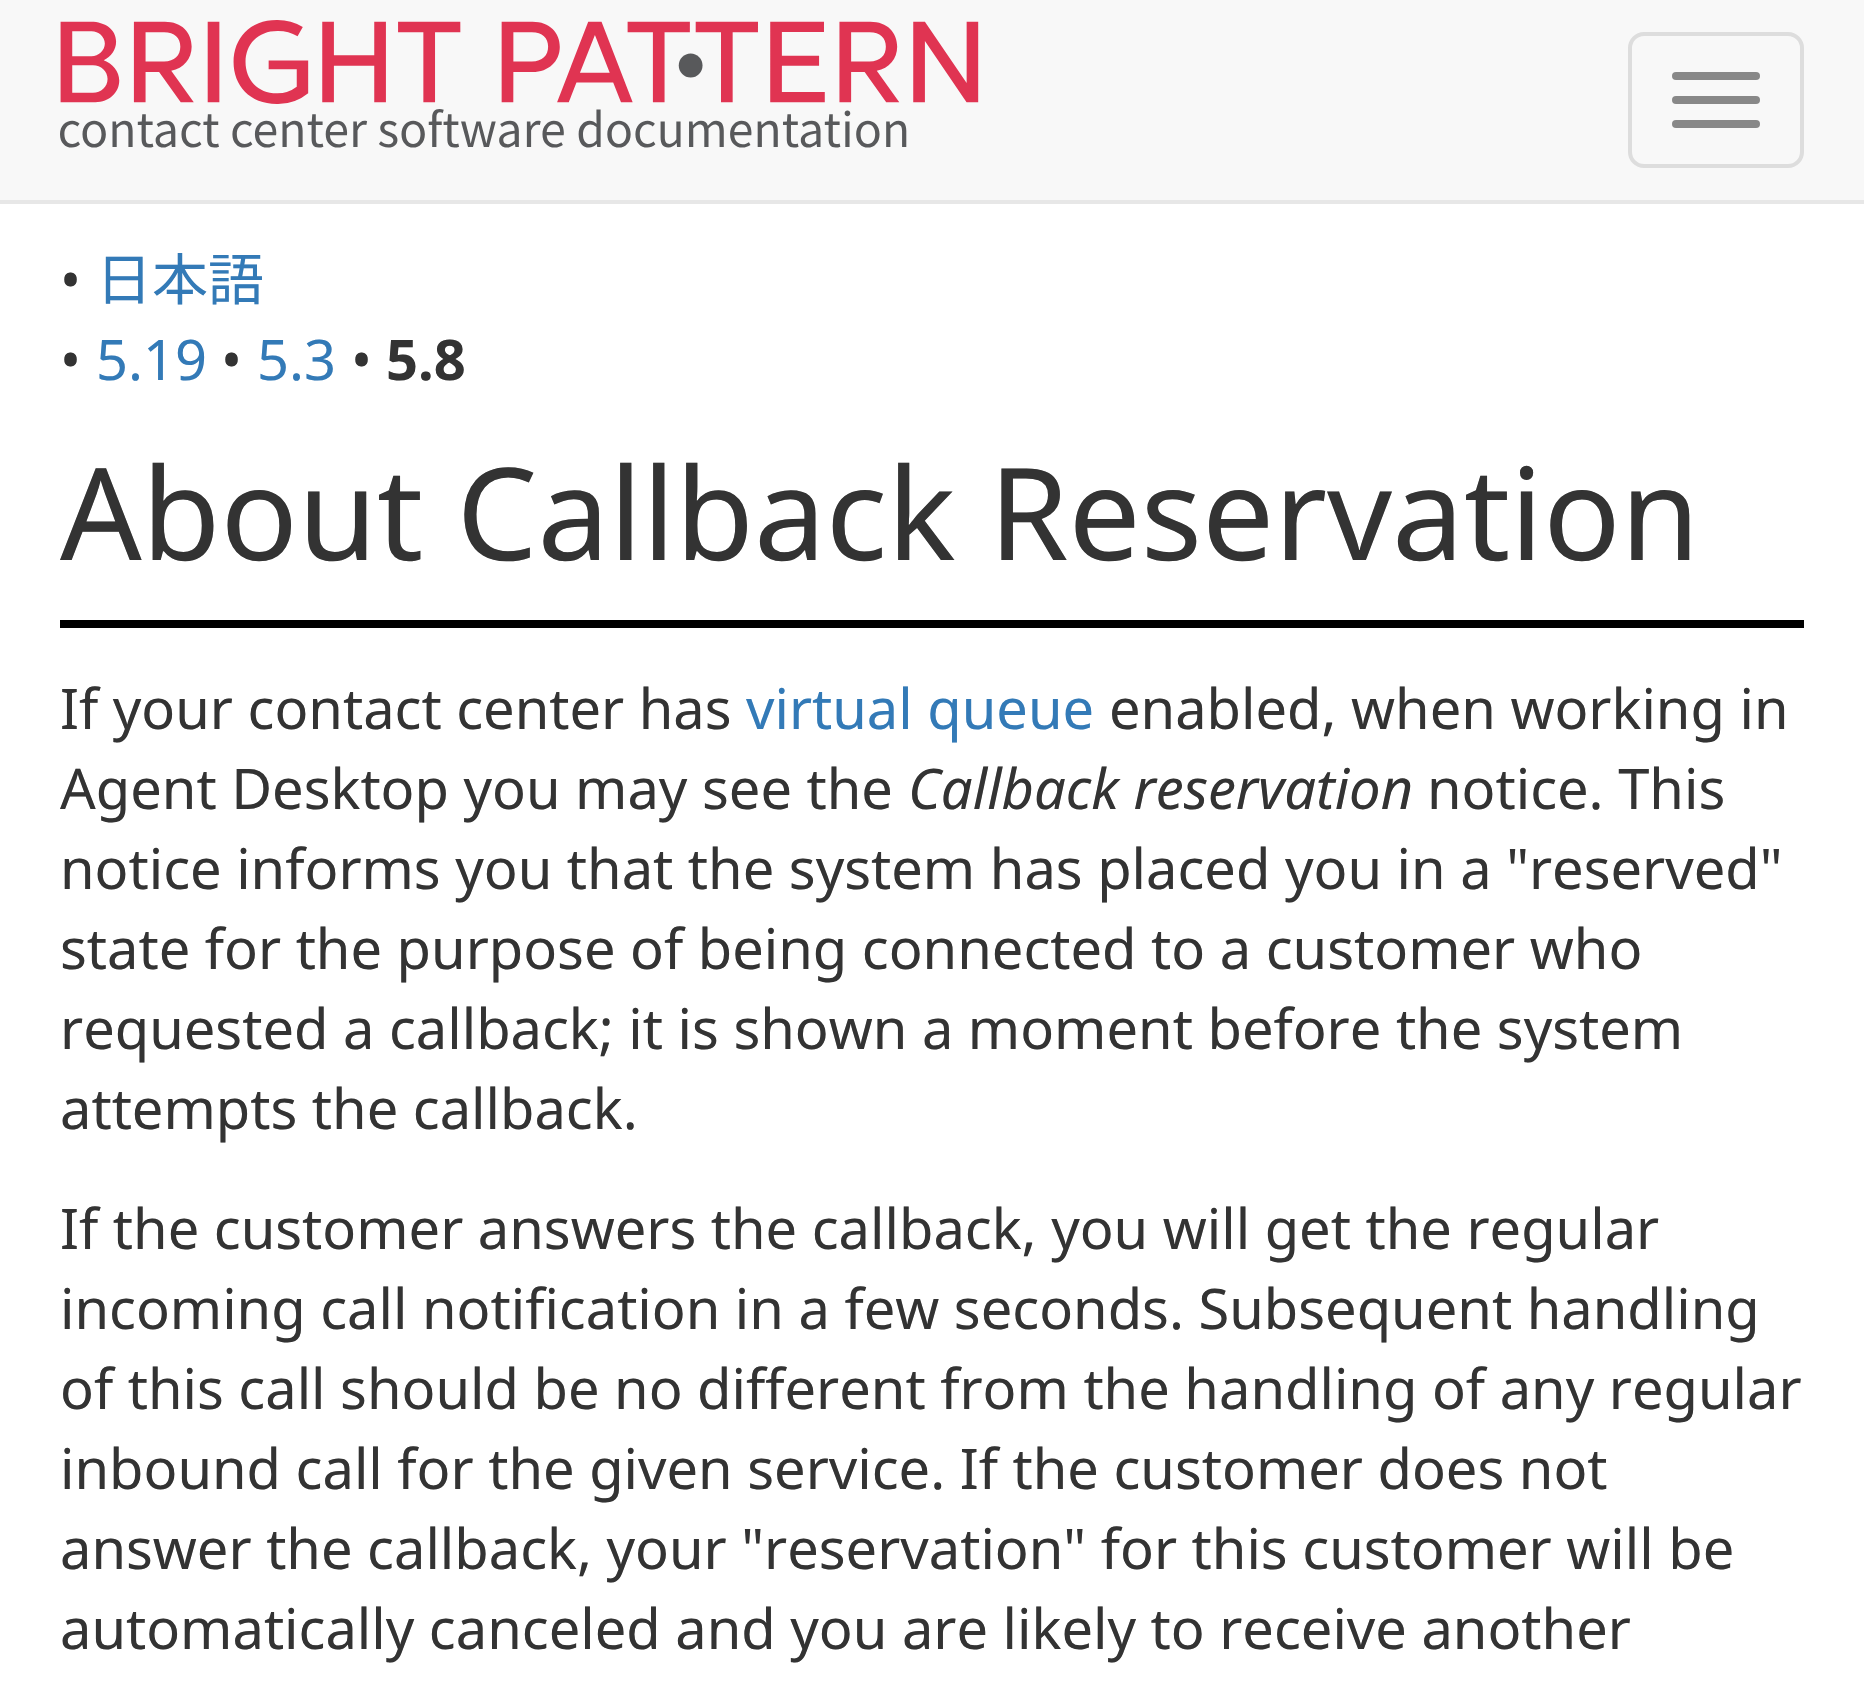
void draw(SkCanvas* canvas) {
	SkPaint fill;
	fill.setAntiAlias(true);
	auto makeFont = [&](const char* family, int weight, float size, bool italic = false) {
		SkFontStyle style(weight, SkFontStyle::kNormal_Width,
			italic ? SkFontStyle::kItalic_Slant : SkFontStyle::kUpright_Slant);
		SkFont result(fontMgr->matchFamilyStyle(family, style), size);
		result.setSubpixel(true);
		return result;
	};
	auto text = [&](const char* s, float x, float y, const SkFont& font) {
		canvas->drawString(s, x, y, font, fill);
	};
	auto box = [&](float l, float t, float r, float b) {
		canvas->drawRect(SkRect::MakeLTRB(l, t, r, b), fill);
	};
	auto roundBox = [&](float l, float t, float r, float b, float radius) {
		canvas->drawRoundRect(SkRect::MakeLTRB(l, t, r, b), radius, radius, fill);
	};
	auto picture = [&](const char* path, float l, float t, float r, float b) {
		auto image = SkImages::DeferredFromEncodedData(SkData::MakeFromFileName(path));
		canvas->drawImageRect(image, SkRect::MakeLTRB(l, t, r, b), SkSamplingOptions());
	};
	canvas->clear(0xFFFFFFFF);
	fill.setColor(0xFFF8F8F8);
	box(0, 0, 1864, 200);
	fill.setColor(0xFFE7E7E7);
	box(0, 200, 1864, 204);
	picture("image0.png", 60, 20, 979, 148);
	fill.setStyle(SkPaint::kStroke_Style);
	fill.setStrokeWidth(4);
	fill.setColor(0xFFDDDDDD);
	canvas->drawRoundRect(SkRect::MakeLTRB(1630, 34, 1802, 166), 14, 14, fill);
	fill.setStyle(SkPaint::kFill_Style);
	fill.setColor(0xFF888888);
	roundBox(1672, 72, 1760, 80, 4);
	roundBox(1672, 96, 1760, 104, 4);
	roundBox(1672, 120, 1760, 128, 4);
	fill.setColor(0xFF000000);
	box(60, 620, 1804, 628);
	auto font1 = makeFont("Noto Sans", 400, 56);
	fill.setColor(0xFF333333);
	text("•", 60, 300, font1);
	auto font2 = makeFont("Noto Sans CJK JP", 400, 56);
	fill.setColor(0xFF337AB7);
	text("日本語", 96, 300, font2);
	fill.setColor(0xFF333333);
	text("•", 60, 380, font1);
	fill.setColor(0xFF337AB7);
	text("5.19", 96, 380, font1);
	fill.setColor(0xFF333333);
	text("•", 221, 380, font1);
	fill.setColor(0xFF337AB7);
	text("5.3", 257, 380, font1);
	fill.setColor(0xFF333333);
	text("•", 351, 380, font1);
	auto font3 = makeFont("Noto Sans", 700, 56);
	text("5.8", 386, 380, font3);
	auto font4 = makeFont("Noto Sans", 400, 128);
	text("About Callback Reservation", 60, 560, font4);
	text("If your contact center has", 60, 729, font1);
	fill.setColor(0xFF337AB7);
	text("virtual queue", 746, 729, font1);
	fill.setColor(0xFF333333);
	text("enabled, when working in", 1109, 729, font1);
	text("Agent Desktop you may see the", 60, 809, font1);
	auto font5 = makeFont("Noto Sans", 400, 56, true);
	text("Callback reservation", 908, 809, font5);
	text("notice. This", 1427, 809, font1);
	text("notice informs you that the system has placed you in a \"reserved\"", 60, 889, font1);
	text("state for the purpose of being connected to a customer who", 60, 969, font1);
	text("requested a callback; it is shown a moment before the system", 60, 1049, font1);
	text("attempts the callback.", 60, 1129, font1);
	text("If the customer answers the callback, you will get the regular", 60, 1249, font1);
	text("incoming call notification in a few seconds. Subsequent handling", 60, 1329, font1);
	text("of this call should be no different from the handling of any regular", 60, 1409, font1);
	text("inbound call for the given service. If the customer does not", 60, 1489, font1);
	text("answer the callback, your \"reservation\" for this customer will be", 60, 1569, font1);
	text("automatically canceled and you are likely to receive another", 60, 1649, font1);
}
